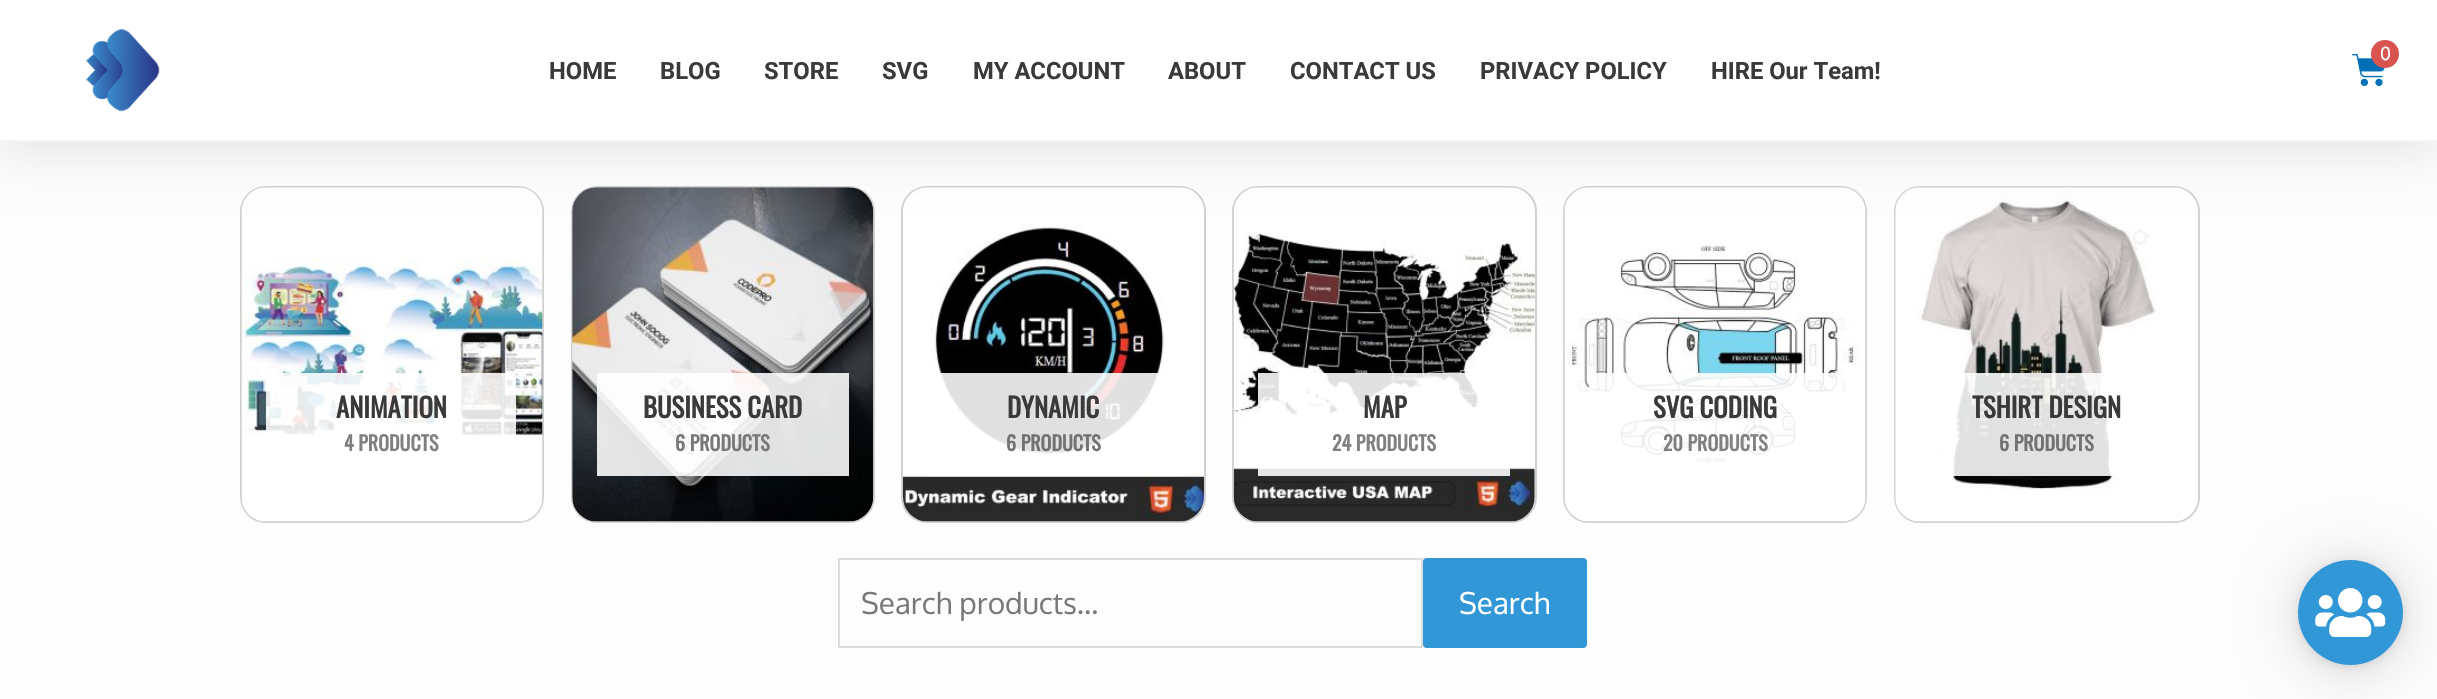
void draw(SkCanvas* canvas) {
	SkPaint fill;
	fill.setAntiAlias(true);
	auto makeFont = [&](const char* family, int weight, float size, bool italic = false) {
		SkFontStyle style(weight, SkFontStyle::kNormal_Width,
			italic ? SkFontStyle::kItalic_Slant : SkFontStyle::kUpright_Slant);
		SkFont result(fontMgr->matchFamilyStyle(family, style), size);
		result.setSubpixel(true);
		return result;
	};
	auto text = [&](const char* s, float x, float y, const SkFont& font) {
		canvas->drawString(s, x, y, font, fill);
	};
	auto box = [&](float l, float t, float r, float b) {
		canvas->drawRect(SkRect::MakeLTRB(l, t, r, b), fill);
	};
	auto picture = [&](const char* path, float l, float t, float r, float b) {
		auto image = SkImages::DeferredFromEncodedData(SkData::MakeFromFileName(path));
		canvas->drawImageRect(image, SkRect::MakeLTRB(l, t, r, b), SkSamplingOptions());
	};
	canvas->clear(0xFFFEFDFD);
	fill.setStyle(SkPaint::kStroke_Style);
	fill.setStrokeWidth(2);
	fill.setColor(0xFFD1D1D1);
	canvas->drawRoundRect(SkRect::MakeLTRB(241, 187, 543, 522), 25, 25, fill);
	picture("image2.png", 241, 187, 543, 522);
	canvas->drawRoundRect(SkRect::MakeLTRB(572, 187, 874, 522), 25, 25, fill);
	picture("image3.png", 572, 187, 874, 522);
	canvas->drawRoundRect(SkRect::MakeLTRB(902, 187, 1205, 522), 25, 25, fill);
	picture("image4.png", 903, 187, 1204, 522);
	canvas->drawRoundRect(SkRect::MakeLTRB(1233, 187, 1536, 522), 25, 25, fill);
	picture("image5.png", 1233, 187, 1535, 522);
	canvas->drawRoundRect(SkRect::MakeLTRB(1564, 187, 1866, 522), 25, 25, fill);
	picture("image6.png", 1564, 187, 1866, 522);
	canvas->drawRoundRect(SkRect::MakeLTRB(1895, 187, 2199, 522), 25, 25, fill);
	picture("image7.png", 1895, 187, 2198, 522);
	fill.setStyle(SkPaint::kFill_Style);
	fill.setColor(0x1A000000);
	fill.setMaskFilter(SkMaskFilter::MakeBlur(kNormal_SkBlurStyle, 26));
	canvas->drawRect(SkRect::MakeLTRB(0, 9, 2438, 151), fill);
	fill.setMaskFilter(nullptr);
	fill.setColor(0xFFFFFFFF);
	box(0, 0, 2437, 140);
	fill.setColor(0xFFF2F5F7);
	box(0, 140, 2437, 142);
	picture("image0.png", 85, 28, 160, 112);
	picture("image1.png", 2352, 54, 2385, 86);
	fill.setColor(0xFFD9534F);
	canvas->drawCircle(2385, 54, 14, fill);
	fill.setColor(0xE0FFFFFF);
	box(266, 373, 516, 438);
	box(597, 373, 849, 476);
	box(928, 373, 1180, 476);
	box(1258, 373, 1510, 476);
	box(1589, 373, 1841, 464);
	box(1934, 373, 2119, 476);
	fill.setStyle(SkPaint::kStroke_Style);
	fill.setColor(0xFFDDDDDD);
	canvas->drawRect(SkRect::MakeLTRB(839, 559, 1422, 647), fill);
	fill.setStyle(SkPaint::kFill_Style);
	fill.setColor(0xFF3197D6);
	canvas->drawRoundRect(SkRect::MakeLTRB(1424, 559, 1586, 647), 3, 3, fill);
	fill.setStyle(SkPaint::kStroke_Style);
	canvas->drawRoundRect(SkRect::MakeLTRB(1424, 559, 1586, 647), 3, 3, fill);
	fill.setStyle(SkPaint::kFill_Style);
	fill.setColor(0x29000000);
	fill.setMaskFilter(SkMaskFilter::MakeBlur(kNormal_SkBlurStyle, 28));
	canvas->drawRoundRect(SkRect::MakeLTRB(2298, 564, 2403, 669), 52.5f, 52.5f, fill);
	fill.setMaskFilter(nullptr);
	fill.setColor(0x1A000000);
	fill.setMaskFilter(SkMaskFilter::MakeBlur(kNormal_SkBlurStyle, 5));
	canvas->drawRoundRect(SkRect::MakeLTRB(2298, 562, 2403, 667), 52.5f, 52.5f, fill);
	fill.setMaskFilter(nullptr);
	fill.setColor(0xFF3197D6);
	canvas->drawCircle(2350.5f, 612.5f, 52.5f, fill);
	picture("image8.png", 2315, 588, 2386, 637);
	auto font1 = makeFont("Oxygen", 400, 18);
	fill.setColor(0xFFFFFFFF);
	text("0", 2380, 60, font1);
	auto font2 = makeFont("Roboto", 700, 23.75f);
	fill.setColor(0xFF3A3A3A);
	text("HOME", 549, 79, font2);
	text("BLOG", 660, 79, font2);
	text("STORE", 764, 79, font2);
	text("SVG", 882, 79, font2);
	text("MY ACCOUNT", 973, 79, font2);
	text("ABOUT", 1168, 79, font2);
	text("CONTACT US", 1290, 79, font2);
	text("PRIVACY POLICY", 1480, 79, font2);
	text("HIRE Our Team!", 1711, 79, font2);
	auto font3 = makeFont("Oswald", 700, 26.75f);
	text("ANIMATION", 336, 418, font3);
	auto font4 = makeFont("Oswald", 700, 20);
	fill.setColor(0xFF808080);
	text("4 PRODUCTS", 344, 451, font4);
	fill.setColor(0xFF3A3A3A);
	text("BUSINESS CARD", 643, 418, font3);
	fill.setColor(0xFF787878);
	text("6 PRODUCTS", 675, 451, font4);
	fill.setColor(0xFF3A3A3A);
	text("DYNAMIC", 1007, 418, font3);
	fill.setColor(0xFF727272);
	text("6 PRODUCTS", 1006, 451, font4);
	fill.setColor(0xFF3A3A3A);
	text("MAP", 1363, 418, font3);
	fill.setColor(0xFF808080);
	text("24 PRODUCTS", 1332, 451, font4);
	fill.setColor(0xFF3A3A3A);
	text("SVG CODING", 1653, 418, font3);
	fill.setColor(0xFF808080);
	text("20 PRODUCTS", 1663, 451, font4);
	fill.setColor(0xFF3A3A3A);
	text("TSHIRT DESIGN", 1972, 418, font3);
	fill.setColor(0xFF727272);
	text("6 PRODUCTS", 1999, 451, font4);
	auto font5 = makeFont("Oxygen", 400, 29.75f);
	fill.setColor(0xFF787878);
	text("Search products…", 861, 614, font5);
	fill.setColor(0xFFFFFFFF);
	text("Search", 1459, 614, font5);
}
